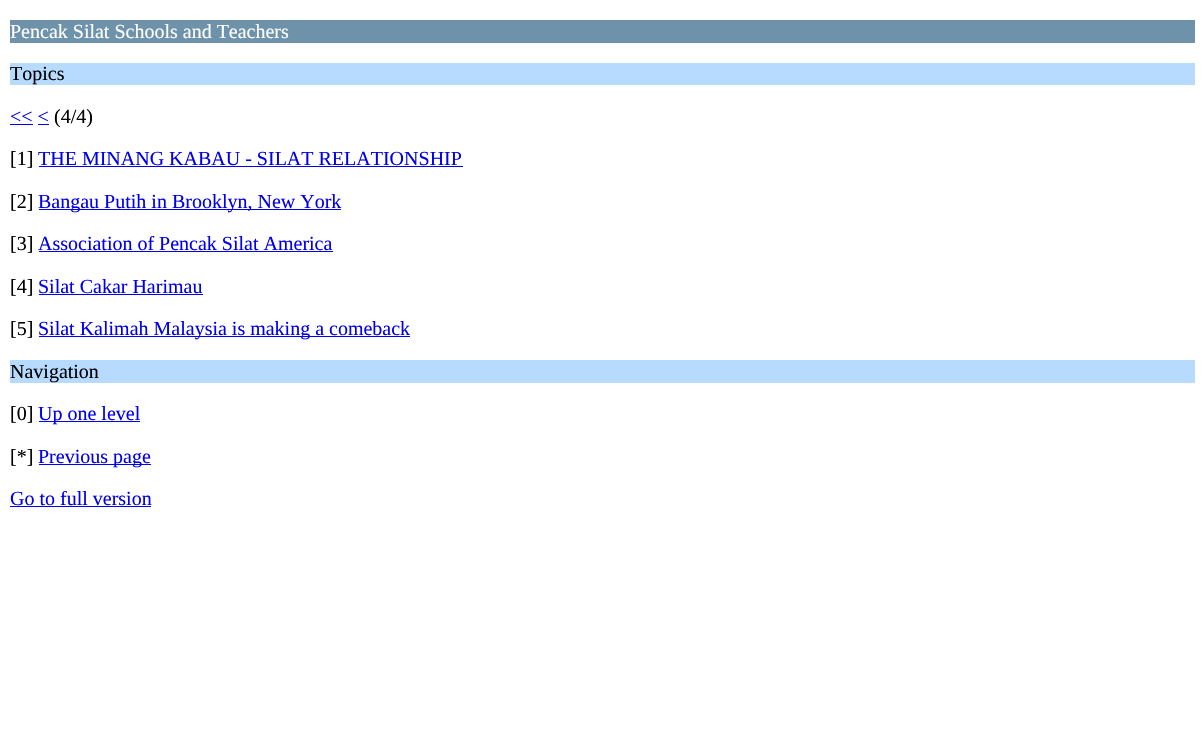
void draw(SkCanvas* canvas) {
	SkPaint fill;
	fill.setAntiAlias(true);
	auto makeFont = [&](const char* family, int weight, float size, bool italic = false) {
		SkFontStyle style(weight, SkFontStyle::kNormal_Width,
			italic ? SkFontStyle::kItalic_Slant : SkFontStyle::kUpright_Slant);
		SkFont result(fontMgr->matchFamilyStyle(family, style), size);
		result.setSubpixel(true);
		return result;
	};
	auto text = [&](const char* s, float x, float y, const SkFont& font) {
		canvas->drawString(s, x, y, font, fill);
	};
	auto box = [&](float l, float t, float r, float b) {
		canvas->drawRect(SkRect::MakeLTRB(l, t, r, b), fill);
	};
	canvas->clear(0xFFFFFFFF);
	fill.setColor(0xFF6D92AA);
	box(10, 20, 1195, 43);
	fill.setColor(0xFFB6DBFF);
	box(10, 63, 1195, 85);
	fill.setColor(0xFF0000EE);
	box(10, 124, 33, 125);
	box(38, 124, 49, 125);
	box(39, 166, 463, 167);
	box(39, 209, 341, 210);
	box(39, 251, 333, 252);
	box(39, 294, 203, 295);
	box(39, 336, 410, 337);
	fill.setColor(0xFFB6DBFF);
	box(10, 360, 1195, 383);
	fill.setColor(0xFF0000EE);
	box(39, 421, 140, 422);
	box(39, 464, 151, 465);
	box(10, 506, 151, 507);
	auto font1 = makeFont("Liberation Serif", 400, 20);
	fill.setColor(0xFFFFFFFF);
	text("Pencak Silat Schools and Teachers", 10, 38, font1);
	fill.setColor(0xFF000000);
	text("Topics", 10, 80, font1);
	fill.setColor(0xFF0000EE);
	text("<< <", 10, 123, font1);
	fill.setColor(0xFF000000);
	text("(4/4)", 54, 123, font1);
	text("[1]", 10, 165, font1);
	fill.setColor(0xFF0000EE);
	text("THE MINANG KABAU - SILAT RELATIONSHIP", 38, 165, font1);
	fill.setColor(0xFF000000);
	text("[2]", 10, 208, font1);
	fill.setColor(0xFF0000EE);
	text("Bangau Putih in Brooklyn, New York", 38, 208, font1);
	fill.setColor(0xFF000000);
	text("[3]", 10, 250, font1);
	fill.setColor(0xFF0000EE);
	text("Association of Pencak Silat America", 38, 250, font1);
	fill.setColor(0xFF000000);
	text("[4]", 10, 293, font1);
	fill.setColor(0xFF0000EE);
	text("Silat Cakar Harimau", 38, 293, font1);
	fill.setColor(0xFF000000);
	text("[5]", 10, 335, font1);
	fill.setColor(0xFF0000EE);
	text("Silat Kalimah Malaysia is making a comeback", 38, 335, font1);
	fill.setColor(0xFF000000);
	text("Navigation", 10, 378, font1);
	text("[0]", 10, 420, font1);
	fill.setColor(0xFF0000EE);
	text("Up one level", 38, 420, font1);
	fill.setColor(0xFF000000);
	text("[*]", 10, 463, font1);
	fill.setColor(0xFF0000EE);
	text("Previous page", 38, 463, font1);
	text("Go to full version", 10, 505, font1);
}
